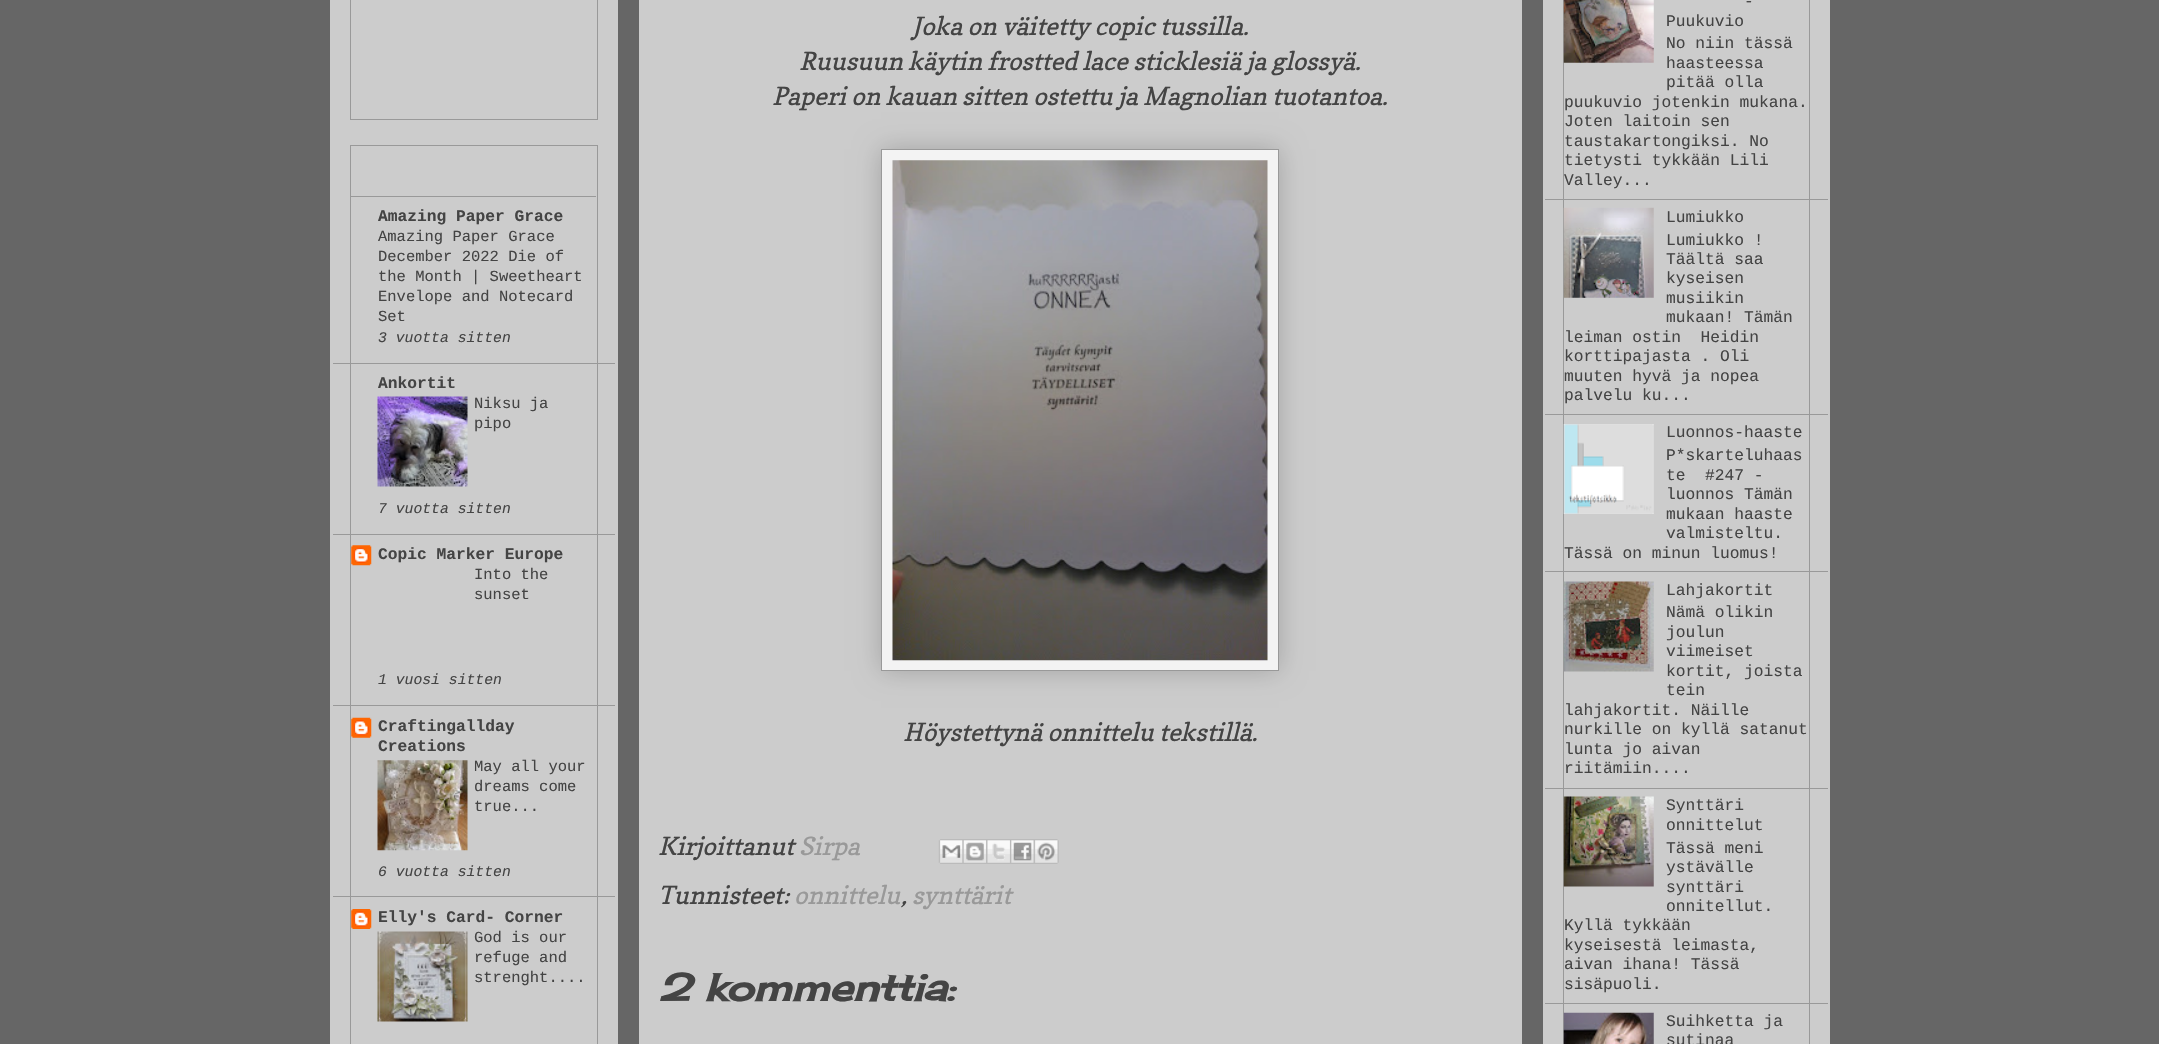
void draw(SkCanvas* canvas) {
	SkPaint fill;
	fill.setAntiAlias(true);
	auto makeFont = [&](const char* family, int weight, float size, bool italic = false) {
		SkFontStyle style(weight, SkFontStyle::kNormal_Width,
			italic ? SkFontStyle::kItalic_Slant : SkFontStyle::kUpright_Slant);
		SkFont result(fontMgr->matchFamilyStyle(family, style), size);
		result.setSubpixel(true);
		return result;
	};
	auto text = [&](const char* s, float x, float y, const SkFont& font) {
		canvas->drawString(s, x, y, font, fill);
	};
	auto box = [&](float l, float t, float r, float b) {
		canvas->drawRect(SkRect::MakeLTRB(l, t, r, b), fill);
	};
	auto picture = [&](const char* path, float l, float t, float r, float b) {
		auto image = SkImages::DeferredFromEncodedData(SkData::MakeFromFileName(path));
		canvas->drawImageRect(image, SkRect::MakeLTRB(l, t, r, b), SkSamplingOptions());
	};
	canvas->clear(0xFF666666);
	fill.setColor(0xFFCCCCCC);
	box(330, 0, 618, 1044);
	fill.setStyle(SkPaint::kStroke_Style);
	fill.setStrokeWidth(1);
	fill.setColor(0xFF999999);
	canvas->drawRect(SkRect::MakeLTRB(350.5f, -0.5f, 597.5f, 119.5f), fill);
	canvas->drawRect(SkRect::MakeLTRB(350.5f, 145.5f, 597.5f, 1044.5f), fill);
	fill.setStyle(SkPaint::kFill_Style);
	box(351, 196, 596, 197);
	box(333, 363, 615, 364);
	box(333, 534, 615, 535);
	picture("image0.png", 377, 396, 468, 487);
	box(333, 705, 615, 706);
	picture("image1.png", 351, 545, 372, 566);
	box(333, 896, 615, 897);
	picture("image2.png", 351, 717, 372, 738);
	picture("image3.png", 377, 760, 468, 851);
	picture("image4.png", 351, 909, 372, 929);
	picture("image5.png", 377, 931, 468, 1022);
	fill.setColor(0xFFCCCCCC);
	box(639, 0, 1522, 1044);
	fill.setColor(0x33000000);
	fill.setMaskFilter(SkMaskFilter::MakeBlur(kNormal_SkBlurStyle, 12.5f));
	canvas->drawRect(SkRect::MakeLTRB(881, 149, 1279, 671), fill);
	fill.setMaskFilter(nullptr);
	fill.setColor(0xFFF3F3F3);
	canvas->drawRect(SkRect::MakeLTRB(881.5f, 149.5f, 1278.5f, 670.5f), fill);
	fill.setStyle(SkPaint::kStroke_Style);
	fill.setColor(0xFF999999);
	canvas->drawRect(SkRect::MakeLTRB(881.5f, 149.5f, 1278.5f, 670.5f), fill);
	picture("image6.png", 892, 160, 1268, 661);
	picture("image7.png", 938, 839, 963, 864);
	picture("image8.png", 962, 839, 987, 864);
	picture("image9.png", 986, 839, 1010, 864);
	picture("image10.png", 1010, 839, 1034, 864);
	picture("image11.png", 1033, 839, 1059, 864);
	fill.setStyle(SkPaint::kFill_Style);
	fill.setColor(0xFFCCCCCC);
	box(1543, 0, 1830, 1044);
	fill.setStyle(SkPaint::kStroke_Style);
	fill.setColor(0xFF999999);
	canvas->drawRect(SkRect::MakeLTRB(1563.5f, -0.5f, 1809.5f, 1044.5f), fill);
	fill.setStyle(SkPaint::kFill_Style);
	box(1545, 199, 1828, 200);
	picture("image12.png", 1563, 0, 1654, 63);
	box(1545, 414, 1828, 415);
	picture("image13.png", 1563, 207, 1654, 298);
	box(1545, 571, 1828, 572);
	picture("image14.png", 1563, 424, 1654, 514);
	box(1545, 788, 1828, 789);
	picture("image15.png", 1563, 581, 1654, 672);
	box(1545, 1003, 1828, 1004);
	picture("image16.png", 1563, 796, 1654, 887);
	picture("image17.png", 1563, 1012, 1654, 1044);
	auto font1 = makeFont("Liberation Mono", 700, 16.25f);
	fill.setColor(0xFF444444);
	text("Amazing Paper Grace", 378, 221, font1);
	auto font2 = makeFont("Liberation Mono", 400, 15.5f);
	text("Amazing Paper Grace", 378, 241, font2);
	text("December 2022 Die of", 378, 261, font2);
	text("the Month | Sweetheart", 378, 281, font2);
	text("Envelope and Notecard", 378, 301, font2);
	text("Set", 378, 321, font2);
	auto font3 = makeFont("Liberation Mono", 400, 14.75f, true);
	text("3 vuotta sitten", 378, 342, font3);
	text("Ankortit", 378, 388, font1);
	text("Niksu ja", 474, 408, font2);
	text("pipo", 474, 428, font2);
	text("7 vuotta sitten", 378, 513, font3);
	text("Copic Marker Europe", 378, 559, font1);
	text("Into the", 474, 579, font2);
	text("sunset", 474, 599, font2);
	text("1 vuosi sitten", 378, 684, font3);
	text("Craftingallday", 378, 731, font1);
	text("Creations", 378, 751, font1);
	text("May all your", 474, 771, font2);
	text("dreams come", 474, 791, font2);
	text("true...", 474, 811, font2);
	text("6 vuotta sitten", 378, 876, font3);
	text("Elly's Card- Corner", 378, 922, font1);
	text("God is our", 474, 942, font2);
	text("refuge and", 474, 962, font2);
	text("strenght....", 474, 982, font2);
	auto font4 = makeFont("Copse", 400, 25, true);
	text("Joka on väitetty copic tussilla.", 912, 35, font4);
	text("Ruusuun käytin frostted lace sticklesiä ja glossyä.", 799, 70, font4);
	text("Paperi on kauan sitten ostettu ja Magnolian tuotantoa.", 772, 105, font4);
	text("Höystettynä onnittelu tekstillä.", 903, 741, font4);
	text("Kirjoittanut", 658, 855, font4);
	fill.setColor(0xFF999999);
	text("Sirpa", 799, 855, font4);
	fill.setColor(0xFF444444);
	text("Tunnisteet:", 658, 904, font4);
	fill.setColor(0xFF999999);
	text("onnittelu", 794, 904, font4);
	fill.setColor(0xFF444444);
	text(",", 901, 904, font4);
	fill.setColor(0xFF999999);
	text("synttärit", 912, 904, font4);
	auto font5 = makeFont("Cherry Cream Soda", 700, 37.5f, true);
	fill.setColor(0xFF444444);
	text("2 kommenttia:", 658, 1001, font5);
	auto font6 = makeFont("Liberation Mono", 400, 16.25f);
	text("-", 1744, 6, font6);
	text("Puukuvio", 1666, 26, font6);
	text("No niin tässä", 1666, 48, font6);
	text("haasteessa", 1666, 68, font6);
	text("pitää olla", 1666, 87, font6);
	text("puukuvio jotenkin mukana.", 1564, 107, font6);
	text("Joten laitoin sen", 1564, 126, font6);
	text("taustakartongiksi. No", 1564, 146, font6);
	text("tietysti tykkään Lili", 1564, 165, font6);
	text("Valley...", 1564, 185, font6);
	text("Lumiukko", 1666, 222, font6);
	text("Lumiukko !", 1666, 245, font6);
	text("Täältä saa", 1666, 264, font6);
	text("kyseisen", 1666, 283, font6);
	text("musiikin", 1666, 303, font6);
	text("mukaan! Tämän", 1666, 322, font6);
	text("leiman ostin  Heidin", 1564, 342, font6);
	text("korttipajasta . Oli", 1564, 361, font6);
	text("muuten hyvä ja nopea", 1564, 381, font6);
	text("palvelu ku...", 1564, 400, font6);
	text("Luonnos-haaste", 1666, 437, font6);
	text("P*skarteluhaas", 1666, 460, font6);
	text("te  #247 -", 1666, 480, font6);
	text("luonnos Tämän", 1666, 499, font6);
	text("mukaan haaste", 1666, 519, font6);
	text("valmisteltu.", 1666, 538, font6);
	text("Tässä on minun luomus!", 1564, 558, font6);
	text("Lahjakortit", 1666, 595, font6);
	text("Nämä olikin", 1666, 617, font6);
	text("joulun", 1666, 637, font6);
	text("viimeiset", 1666, 656, font6);
	text("kortit, joista", 1666, 676, font6);
	text("tein", 1666, 695, font6);
	text("lahjakortit. Näille", 1564, 715, font6);
	text("nurkille on kyllä satanut", 1564, 734, font6);
	text("lunta jo aivan", 1564, 754, font6);
	text("riitämiin....", 1564, 773, font6);
	text("Synttäri", 1666, 810, font6);
	text("onnittelut", 1666, 830, font6);
	text("Tässä meni", 1666, 853, font6);
	text("ystävälle", 1666, 872, font6);
	text("synttäri", 1666, 892, font6);
	text("onnitellut.", 1666, 911, font6);
	text("Kyllä tykkään", 1564, 930, font6);
	text("kyseisestä leimasta,", 1564, 950, font6);
	text("aivan ihana! Tässä", 1564, 969, font6);
	text("sisäpuoli.", 1564, 989, font6);
	text("Suihketta ja", 1666, 1026, font6);
	text("sutinaa", 1666, 1045, font6);
}
